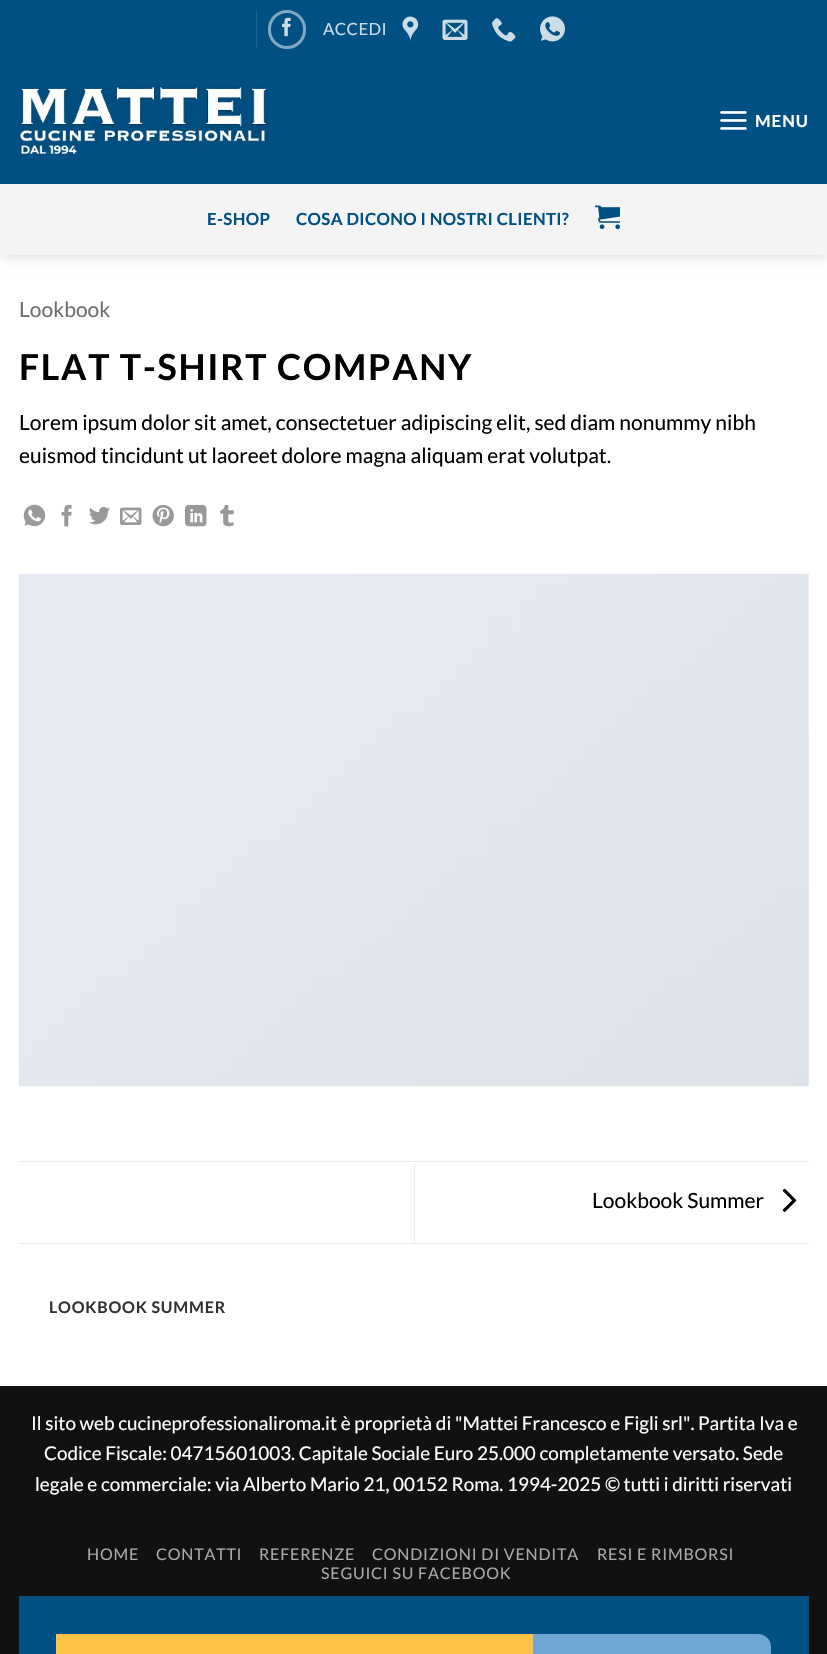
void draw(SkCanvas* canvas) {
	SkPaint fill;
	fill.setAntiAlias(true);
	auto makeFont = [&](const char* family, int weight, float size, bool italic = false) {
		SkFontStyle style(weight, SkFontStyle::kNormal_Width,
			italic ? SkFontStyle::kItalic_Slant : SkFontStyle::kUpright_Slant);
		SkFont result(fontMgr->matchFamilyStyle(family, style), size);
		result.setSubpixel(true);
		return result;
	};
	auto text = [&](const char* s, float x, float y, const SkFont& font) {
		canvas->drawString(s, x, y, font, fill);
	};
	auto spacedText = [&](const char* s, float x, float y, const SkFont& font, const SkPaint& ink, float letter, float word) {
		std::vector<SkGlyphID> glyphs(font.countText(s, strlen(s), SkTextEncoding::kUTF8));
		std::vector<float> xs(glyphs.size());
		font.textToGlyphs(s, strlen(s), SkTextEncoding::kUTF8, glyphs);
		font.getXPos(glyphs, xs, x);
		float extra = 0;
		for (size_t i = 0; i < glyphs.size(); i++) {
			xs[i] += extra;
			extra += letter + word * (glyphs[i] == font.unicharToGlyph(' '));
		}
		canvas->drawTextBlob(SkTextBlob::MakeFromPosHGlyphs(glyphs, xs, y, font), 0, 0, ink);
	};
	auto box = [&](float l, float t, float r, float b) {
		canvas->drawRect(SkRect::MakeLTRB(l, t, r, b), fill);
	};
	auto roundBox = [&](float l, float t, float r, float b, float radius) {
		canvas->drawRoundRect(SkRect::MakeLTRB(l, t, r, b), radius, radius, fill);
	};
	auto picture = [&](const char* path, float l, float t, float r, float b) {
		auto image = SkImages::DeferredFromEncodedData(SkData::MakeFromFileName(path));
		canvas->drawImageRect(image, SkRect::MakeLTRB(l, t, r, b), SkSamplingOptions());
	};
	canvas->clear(0xFFFFFFFF);
	fill.setColor(0x26000000);
	fill.setMaskFilter(SkMaskFilter::MakeBlur(kNormal_SkBlurStyle, 6));
	canvas->drawRect(SkRect::MakeLTRB(1, 1, 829, 256), fill);
	fill.setMaskFilter(nullptr);
	fill.setColor(0xFF005084);
	box(0, 0, 827, 184);
	fill.setColor(0xFF1A6290);
	box(256, 10, 257, 48);
	fill.setStyle(SkPaint::kStroke_Style);
	fill.setStrokeWidth(3);
	fill.setColor(0xFF80A8C2);
	canvas->drawRoundRect(SkRect::MakeLTRB(269.5f, 11.5f, 304.5f, 47.5f), 17.5f, 17.5f, fill);
	picture("image0.png", 282, 17, 291, 37);
	picture("image1.png", 402, 16, 419, 42);
	picture("image2.png", 442, 19, 468, 40);
	picture("image3.png", 492, 18, 516, 42);
	picture("image4.png", 540, 16, 565, 42);
	picture("image5.png", 19, 86, 269, 155);
	picture("image6.png", 720, 111, 747, 130);
	fill.setStyle(SkPaint::kFill_Style);
	fill.setColor(0xFFF4F4F4);
	box(0, 184, 827, 255);
	picture("image7.png", 595, 205, 620, 229);
	picture("image8.png", 23, 504, 46, 527);
	picture("image9.png", 61, 504, 72, 527);
	picture("image10.png", 89, 506, 110, 525);
	picture("image11.png", 120, 507, 142, 525);
	picture("image12.png", 152, 504, 174, 527);
	picture("image13.png", 185, 504, 207, 527);
	picture("image14.png", 220, 504, 234, 527);
	picture("image15.png", 18, 573, 809, 1087);
	fill.setColor(0xFFECECEC);
	box(19, 1161, 809, 1162);
	box(19, 1243, 809, 1244);
	box(414, 1163, 415, 1243);
	picture("image16.png", 782, 1188, 797, 1212);
	fill.setColor(0xFF111111);
	box(0, 1386, 827, 1654);
	fill.setColor(0xFF005083);
	box(19, 1596, 809, 1654);
	fill.setColor(0xFF6FA6D4);
	roundBox(56, 1634, 771, 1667, 13);
	fill.setColor(0xFFFFC445);
	box(56, 1634, 533, 1654);
	auto font1 = makeFont("Lato", 400, 16.75f);
	fill.setColor(0xFFCCDCE6);
	spacedText("ACCEDI", 323, 35, font1, fill, 0.35f, 0);
	auto font2 = makeFont("Lato", 700, 16.75f);
	fill.setColor(0xFFFFFFFF);
	spacedText("MENU", 755, 127, font2, fill, 1, 0);
	fill.setColor(0xFF005084);
	spacedText("E-SHOP", 207, 225, font2, fill, 0.35f, 0);
	spacedText("COSA DICONO I NOSTRI CLIENTI?", 296, 225, font2, fill, 0.35f, 0);
	auto font3 = makeFont("Lato", 400, 21);
	fill.setColor(0xFF6E6E6E);
	text("Lookbook", 19, 317, font3);
	auto font4 = makeFont("Lato", 700, 35.75f);
	fill.setColor(0xFF000000);
	spacedText("FLAT T-SHIRT COMPANY", 19, 380, font4, fill, 1.75f, 0);
	text("Lorem ipsum dolor sit amet, consectetuer adipiscing elit, sed diam nonummy nibh", 19, 430, font3);
	text("euismod tincidunt ut laoreet dolore magna aliquam erat volutpat.", 19, 463, font3);
	text("Lookbook Summer", 592, 1208, font3);
	auto font5 = makeFont("Lato", 700, 16);
	fill.setColor(0xFF333333);
	spacedText("LOOKBOOK SUMMER", 49, 1313, font5, fill, 0.8f, 0);
	auto font6 = makeFont("Lato", 400, 18.9f);
	fill.setColor(0xFFFFFFFF);
	text("Il sito web cucineprofessionaliroma.it è proprietà di \"Mattei Francesco e Figli srl\". Partita Iva e", 31, 1430, font6);
	text("Codice Fiscale: 04715601003. Capitale Sociale Euro 25.000 completamente versato. Sede", 44, 1460, font6);
	text("legale e commerciale: via Alberto Mario 21, 00152 Roma. 1994-2025 © tutti i diritti riservati", 35, 1491, font6);
	auto font7 = makeFont("Lato", 400, 16);
	fill.setColor(0xFFA9A9A9);
	spacedText("HOME", 87, 1560, font7, fill, 0.8f, 0);
	spacedText("CONTATTI", 156, 1560, font7, fill, 0.8f, 0);
	spacedText("REFERENZE", 259, 1560, font7, fill, 0.8f, 0);
	spacedText("CONDIZIONI DI VENDITA", 372, 1560, font7, fill, 0.8f, 0);
	spacedText("RESI E RIMBORSI", 597, 1560, font7, fill, 0.8f, 0);
	spacedText("SEGUICI SU FACEBOOK", 321, 1579, font7, fill, 0.8f, 0);
}
